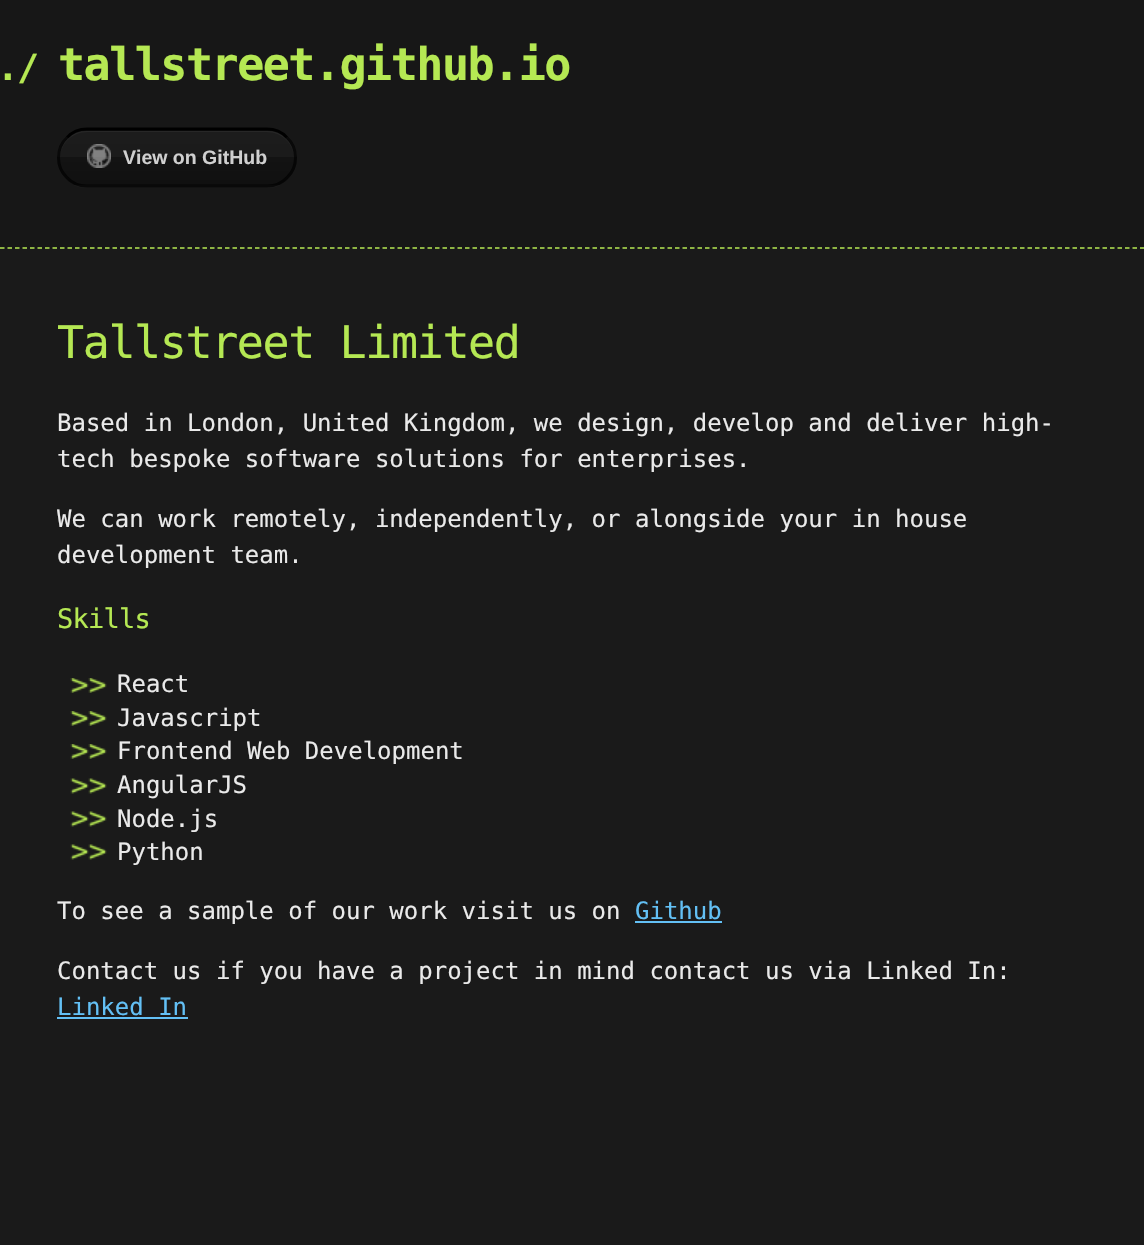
void draw(SkCanvas* canvas) {
	SkPaint fill;
	fill.setAntiAlias(true);
	auto makeFont = [&](const char* family, int weight, float size, bool italic = false) {
		SkFontStyle style(weight, SkFontStyle::kNormal_Width,
			italic ? SkFontStyle::kItalic_Slant : SkFontStyle::kUpright_Slant);
		SkFont result(fontMgr->matchFamilyStyle(family, style), size);
		result.setSubpixel(true);
		return result;
	};
	auto text = [&](const char* s, float x, float y, const SkFont& font) {
		canvas->drawString(s, x, y, font, fill);
	};
	auto spacedText = [&](const char* s, float x, float y, const SkFont& font, const SkPaint& ink, float letter, float word) {
		std::vector<SkGlyphID> glyphs(font.countText(s, strlen(s), SkTextEncoding::kUTF8));
		std::vector<float> xs(glyphs.size());
		font.textToGlyphs(s, strlen(s), SkTextEncoding::kUTF8, glyphs);
		font.getXPos(glyphs, xs, x);
		float extra = 0;
		for (size_t i = 0; i < glyphs.size(); i++) {
			xs[i] += extra;
			extra += letter + word * (glyphs[i] == font.unicharToGlyph(' '));
		}
		canvas->drawTextBlob(SkTextBlob::MakeFromPosHGlyphs(glyphs, xs, y, font), 0, 0, ink);
	};
	auto box = [&](float l, float t, float r, float b) {
		canvas->drawRect(SkRect::MakeLTRB(l, t, r, b), fill);
	};
	auto picture = [&](const char* path, float l, float t, float r, float b) {
		auto image = SkImages::DeferredFromEncodedData(SkData::MakeFromFileName(path));
		canvas->drawImageRect(image, SkRect::MakeLTRB(l, t, r, b), SkSamplingOptions());
	};
	canvas->clear(0xFF1A1A1A);
	fill.setColor(0xFF171717);
	box(0, 0, 1144, 249);
	fill.setStyle(SkPaint::kStroke_Style);
	fill.setStrokeWidth(1.5f);
	fill.setColor(0xFFB5E853);
	fill.setPathEffect(SkDashPathEffect::Make({{4.5f, 3}}, 0));
	canvas->drawPath(SkPathBuilder().moveTo(0, 248).lineTo(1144.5f, 248).detach(), fill);
	fill.setPathEffect(nullptr);
	canvas->save();
	canvas->clipPath(SkPathBuilder().moveTo(87, 128).lineTo(267, 128).cubicTo(283.5f, 128, 297, 141.5f, 297, 158).cubicTo(297, 174.5f, 283.5f, 188, 267, 188).lineTo(87, 188).cubicTo(70.5f, 188, 57, 174.5f, 57, 158).cubicTo(57, 141.5f, 70.5f, 128, 87, 128).close().detach(), true);
	fill.setStyle(SkPaint::kFill_Style);
	{
		const SkColor colors[] = {0xFF1C1C1C, 0xFF1B1B1B, 0xFF131313, 0xFF101010};
		const float stops[] = {0, 0.5f, 0.5f, 1};
		const SkPoint ends[] = {{177, 76}, {177, 131}};
		fill.setShader(SkGradientShader::MakeLinear(ends, colors, stops, 4, SkTileMode::kClamp));
		fill.setAlpha(255);
	}
	box(74, 128, 280, 131);
	{
		const SkColor colors[] = {0xFF1C1C1C, 0xFF1B1B1B, 0xFF131313, 0xFF101010};
		const float stops[] = {0, 0.5f, 0.5f, 1};
		const SkPoint ends[] = {{177, 130}, {177, 185}};
		fill.setShader(SkGradientShader::MakeLinear(ends, colors, stops, 4, SkTileMode::kClamp));
		fill.setAlpha(255);
	}
	box(57, 131, 297, 185);
	{
		const SkColor colors[] = {0xFF1C1C1C, 0xFF1B1B1B, 0xFF131313, 0xFF101010};
		const float stops[] = {0, 0.5f, 0.5f, 1};
		const SkPoint ends[] = {{177, 184}, {177, 239}};
		fill.setShader(SkGradientShader::MakeLinear(ends, colors, stops, 4, SkTileMode::kClamp));
		fill.setAlpha(255);
	}
	box(74, 185, 280, 188);
	canvas->restore();
	fill.setShader(nullptr);
	fill.setColor(0xFF272727);
	canvas->drawPath(SkPathBuilder().moveTo(87, 132).lineTo(267, 132).cubicTo(282, 132, 294, 144, 294, 158).cubicTo(294, 143, 282, 131, 267, 131).lineTo(87, 131).cubicTo(72, 131, 60, 143, 60, 158).cubicTo(60, 144, 72, 132, 87, 132).close().detach(), fill);
	fill.setStyle(SkPaint::kStroke_Style);
	fill.setStrokeWidth(3);
	fill.setColor(0xFF000000);
	canvas->drawPath(SkPathBuilder().moveTo(67, 137.5f).cubicTo(72, 132, 79.5f, 129, 87, 129).lineTo(267, 129).cubicTo(274.5f, 129, 282, 132, 287, 137.5f).detach(), fill);
	fill.setColor(0xB3000000);
	canvas->drawPath(SkPathBuilder().moveTo(287, 137.5f).cubicTo(292.5f, 142.5f, 295.5f, 150, 295.5f, 157.5f).cubicTo(295.5f, 165, 292.5f, 172.5f, 287, 177.5f).cubicTo(282, 183, 274.5f, 186, 267, 186).lineTo(87, 186).cubicTo(79.5f, 186, 72, 183, 67, 177.5f).cubicTo(61.5f, 172.5f, 58.5f, 165, 58.5f, 157.5f).cubicTo(58.5f, 150, 61.5f, 142.5f, 67, 137.5f).detach(), fill);
	picture("image0.png", 87, 144, 111, 168);
	picture("image1.png", 70, 678, 107, 693);
	picture("image1.png", 70, 711, 107, 726);
	picture("image1.png", 70, 744, 107, 759);
	picture("image2.png", 70, 778, 107, 794);
	picture("image2.png", 70, 811, 107, 827);
	picture("image2.png", 70, 844, 107, 860);
	fill.setStyle(SkPaint::kFill_Style);
	fill.setColor(0xFF63C0F5);
	box(635, 921, 722, 923);
	box(57, 1017, 188, 1019);
	auto font1 = makeFont("DejaVu Sans Mono", 700, 36);
	fill.setColor(0xFFB5E853);
	spacedText("./", -3, 80, font1, fill, -1.5f, 0);
	auto font2 = makeFont("DejaVu Sans Mono", 700, 45);
	spacedText("tallstreet.github.io", 58, 80, font2, fill, -1.5f, 0);
	auto font3 = makeFont("Liberation Sans", 700, 19.5f);
	fill.setColor(0xFFD0D0D0);
	text("View on GitHub", 123, 164, font3);
	auto font4 = makeFont("DejaVu Sans Mono", 400, 45);
	fill.setColor(0xFFB5E853);
	spacedText("Tallstreet Limited", 57, 358, font4, fill, -1.4f, 0);
	auto font5 = makeFont("DejaVu Sans Mono", 400, 24);
	fill.setColor(0xFFEAEAEA);
	text("Based in London, United Kingdom, we design, develop and deliver high-", 57, 431, font5);
	text("tech bespoke software solutions for enterprises.", 57, 467, font5);
	text("We can work remotely, independently, or alongside your in house", 57, 527, font5);
	text("development team.", 57, 563, font5);
	auto font6 = makeFont("DejaVu Sans Mono", 400, 27);
	fill.setColor(0xFFB5E853);
	spacedText("Skills", 57, 628, font6, fill, -0.75f, 0);
	fill.setColor(0xFFEAEAEA);
	text("React", 117, 692, font5);
	text("Javascript", 117, 726, font5);
	text("Frontend Web Development", 117, 759, font5);
	text("AngularJS", 117, 793, font5);
	text("Node.js", 117, 827, font5);
	text("Python", 117, 860, font5);
	text("To see a sample of our work visit us on", 57, 919, font5);
	fill.setColor(0xFF63C0F5);
	text("Github", 635, 919, font5);
	fill.setColor(0xFFEAEAEA);
	text("Contact us if you have a project in mind contact us via Linked In:", 57, 979, font5);
	fill.setColor(0xFF63C0F5);
	text("Linked In", 57, 1015, font5);
}
